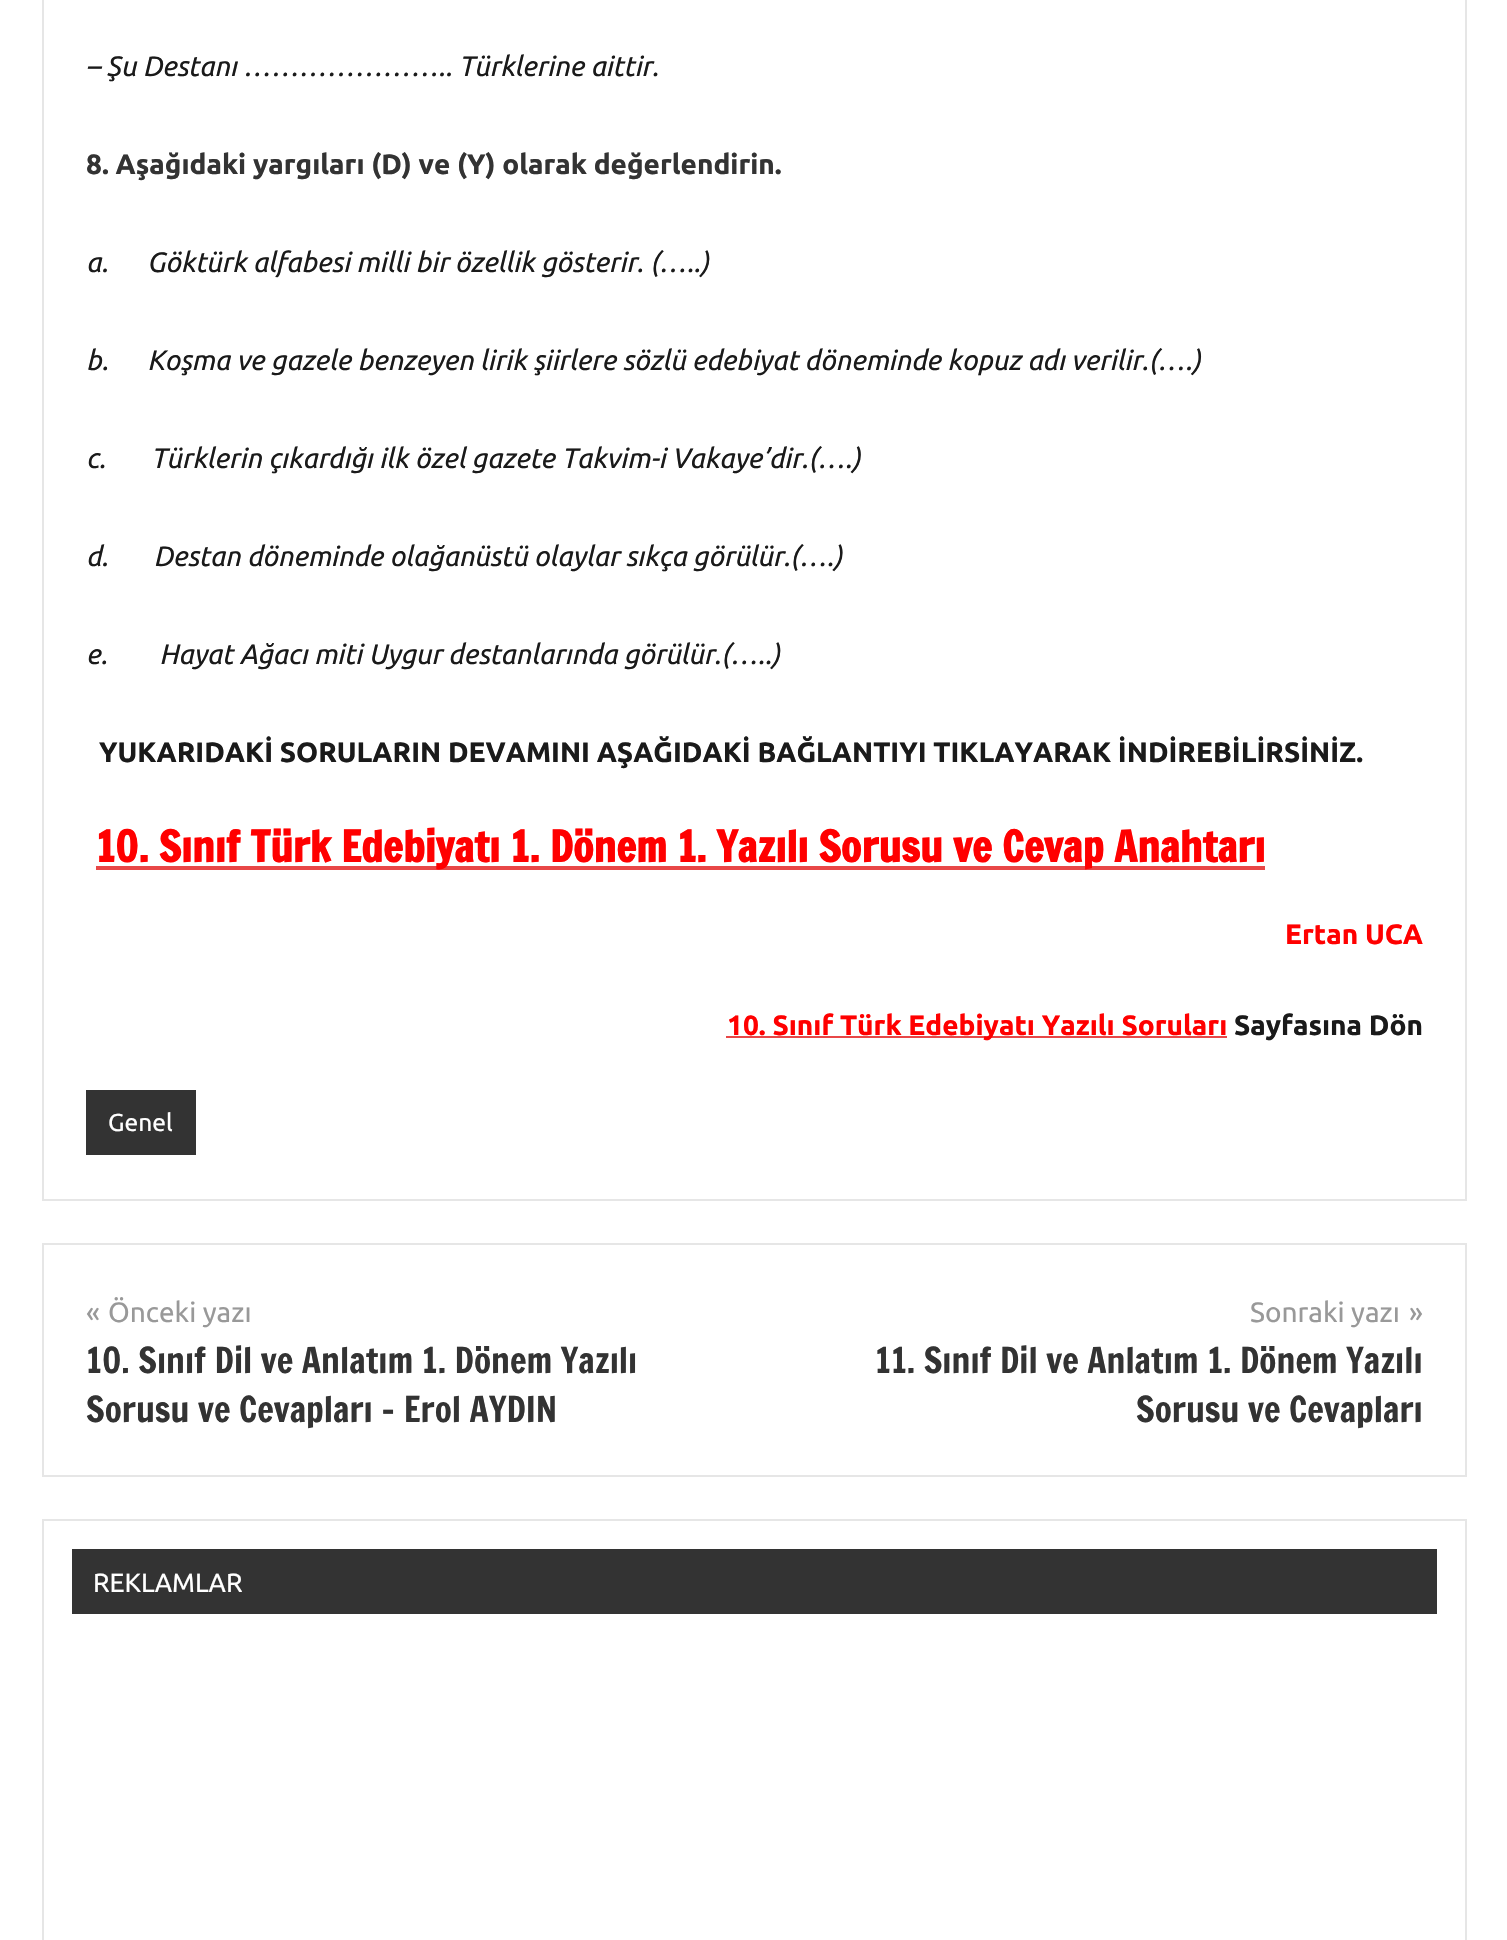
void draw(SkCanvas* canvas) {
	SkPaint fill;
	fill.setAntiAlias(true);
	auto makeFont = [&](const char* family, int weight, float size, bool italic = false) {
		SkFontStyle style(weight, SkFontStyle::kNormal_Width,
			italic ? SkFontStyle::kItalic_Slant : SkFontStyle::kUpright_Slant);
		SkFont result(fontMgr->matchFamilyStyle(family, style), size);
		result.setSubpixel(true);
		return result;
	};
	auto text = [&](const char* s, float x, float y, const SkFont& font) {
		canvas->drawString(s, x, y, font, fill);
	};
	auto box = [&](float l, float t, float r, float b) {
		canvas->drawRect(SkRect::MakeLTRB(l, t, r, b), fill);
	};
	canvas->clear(0xFFFFFFFF);
	fill.setStyle(SkPaint::kStroke_Style);
	fill.setStrokeWidth(2);
	fill.setColor(0xFFE6E6E6);
	canvas->drawRect(SkRect::MakeLTRB(43, -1, 1466, 1200), fill);
	fill.setStyle(SkPaint::kFill_Style);
	fill.setColor(0xFFE84747);
	box(96, 866, 1265, 870);
	box(726, 1036, 1227, 1038);
	fill.setColor(0xFF333333);
	box(86, 1090, 196, 1155);
	fill.setStyle(SkPaint::kStroke_Style);
	fill.setColor(0xFFE6E6E6);
	canvas->drawRect(SkRect::MakeLTRB(43, 1244, 1466, 1476), fill);
	canvas->drawRect(SkRect::MakeLTRB(43, 1520, 1466, 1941), fill);
	fill.setStyle(SkPaint::kFill_Style);
	fill.setColor(0xFF333333);
	box(72, 1549, 1437, 1614);
	auto font1 = makeFont("Ubuntu", 400, 28, true);
	fill.setColor(0xFF1A1A1A);
	text("– Şu Destanı ………………….. Türklerine aittir.", 86, 76, font1);
	auto font2 = makeFont("Ubuntu", 700, 28);
	fill.setColor(0xFF333333);
	text("8. Aşağıdaki yargıları (D) ve (Y) olarak değerlendirin.", 86, 174, font2);
	fill.setColor(0xFF1A1A1A);
	text("a.      Göktürk alfabesi milli bir özellik gösterir. (…..)", 86, 272, font1);
	text("b.      Koşma ve gazele benzeyen lirik şiirlere sözlü edebiyat döneminde kopuz adı verilir.(….)", 86, 370, font1);
	text("c.       Türklerin çıkardığı ilk özel gazete Takvim-i Vakaye’dir.(….)", 86, 468, font1);
	text("d.       Destan döneminde olağanüstü olaylar sıkça görülür.(….)", 86, 566, font1);
	text("e.        Hayat Ağacı miti Uygur destanlarında görülür.(…..)", 86, 664, font1);
	text("YUKARIDAKİ SORULARIN DEVAMINI AŞAĞIDAKİ BAĞLANTIYI TIKLAYARAK İNDİREBİLİRSİNİZ.", 99, 762, font2);
	auto font3 = makeFont("Francois One", 700, 42);
	fill.setColor(0xFFFF0000);
	text("10. Sınıf Türk Edebiyatı 1. Dönem 1. Yazılı Sorusu ve Cevap Anahtarı", 96, 862, font3);
	text("Ertan UCA", 1285, 944, font2);
	text("10. Sınıf Türk Edebiyatı Yazılı Soruları", 727, 1035, font2);
	fill.setColor(0xFF1A1A1A);
	text("Sayfasına Dön", 1234, 1035, font2);
	auto font4 = makeFont("Ubuntu", 400, 24.5f);
	fill.setColor(0xFFFFFFFF);
	text("Genel", 108, 1131, font4);
	auto font5 = makeFont("Ubuntu", 400, 28);
	fill.setColor(0xFF999999);
	text("«", 86, 1322, font5);
	text("Önceki yazı", 108, 1322, font5);
	auto font6 = makeFont("Francois One", 400, 35);
	fill.setColor(0xFF333333);
	text("10. Sınıf Dil ve Anlatım 1. Dönem Yazılı", 86, 1373, font6);
	text("Sorusu ve Cevapları – Erol AYDIN", 86, 1422, font6);
	fill.setColor(0xFF999999);
	text("Sonraki yazı", 1250, 1322, font5);
	text("»", 1409, 1322, font5);
	fill.setColor(0xFF333333);
	text("11. Sınıf Dil ve Anlatım 1. Dönem Yazılı", 875, 1373, font6);
	text("Sorusu ve Cevapları", 1136, 1422, font6);
	auto font7 = makeFont("Ubuntu", 400, 26.25f);
	fill.setColor(0xFFFFFFFF);
	text("REKLAMLAR", 93, 1592, font7);
}
